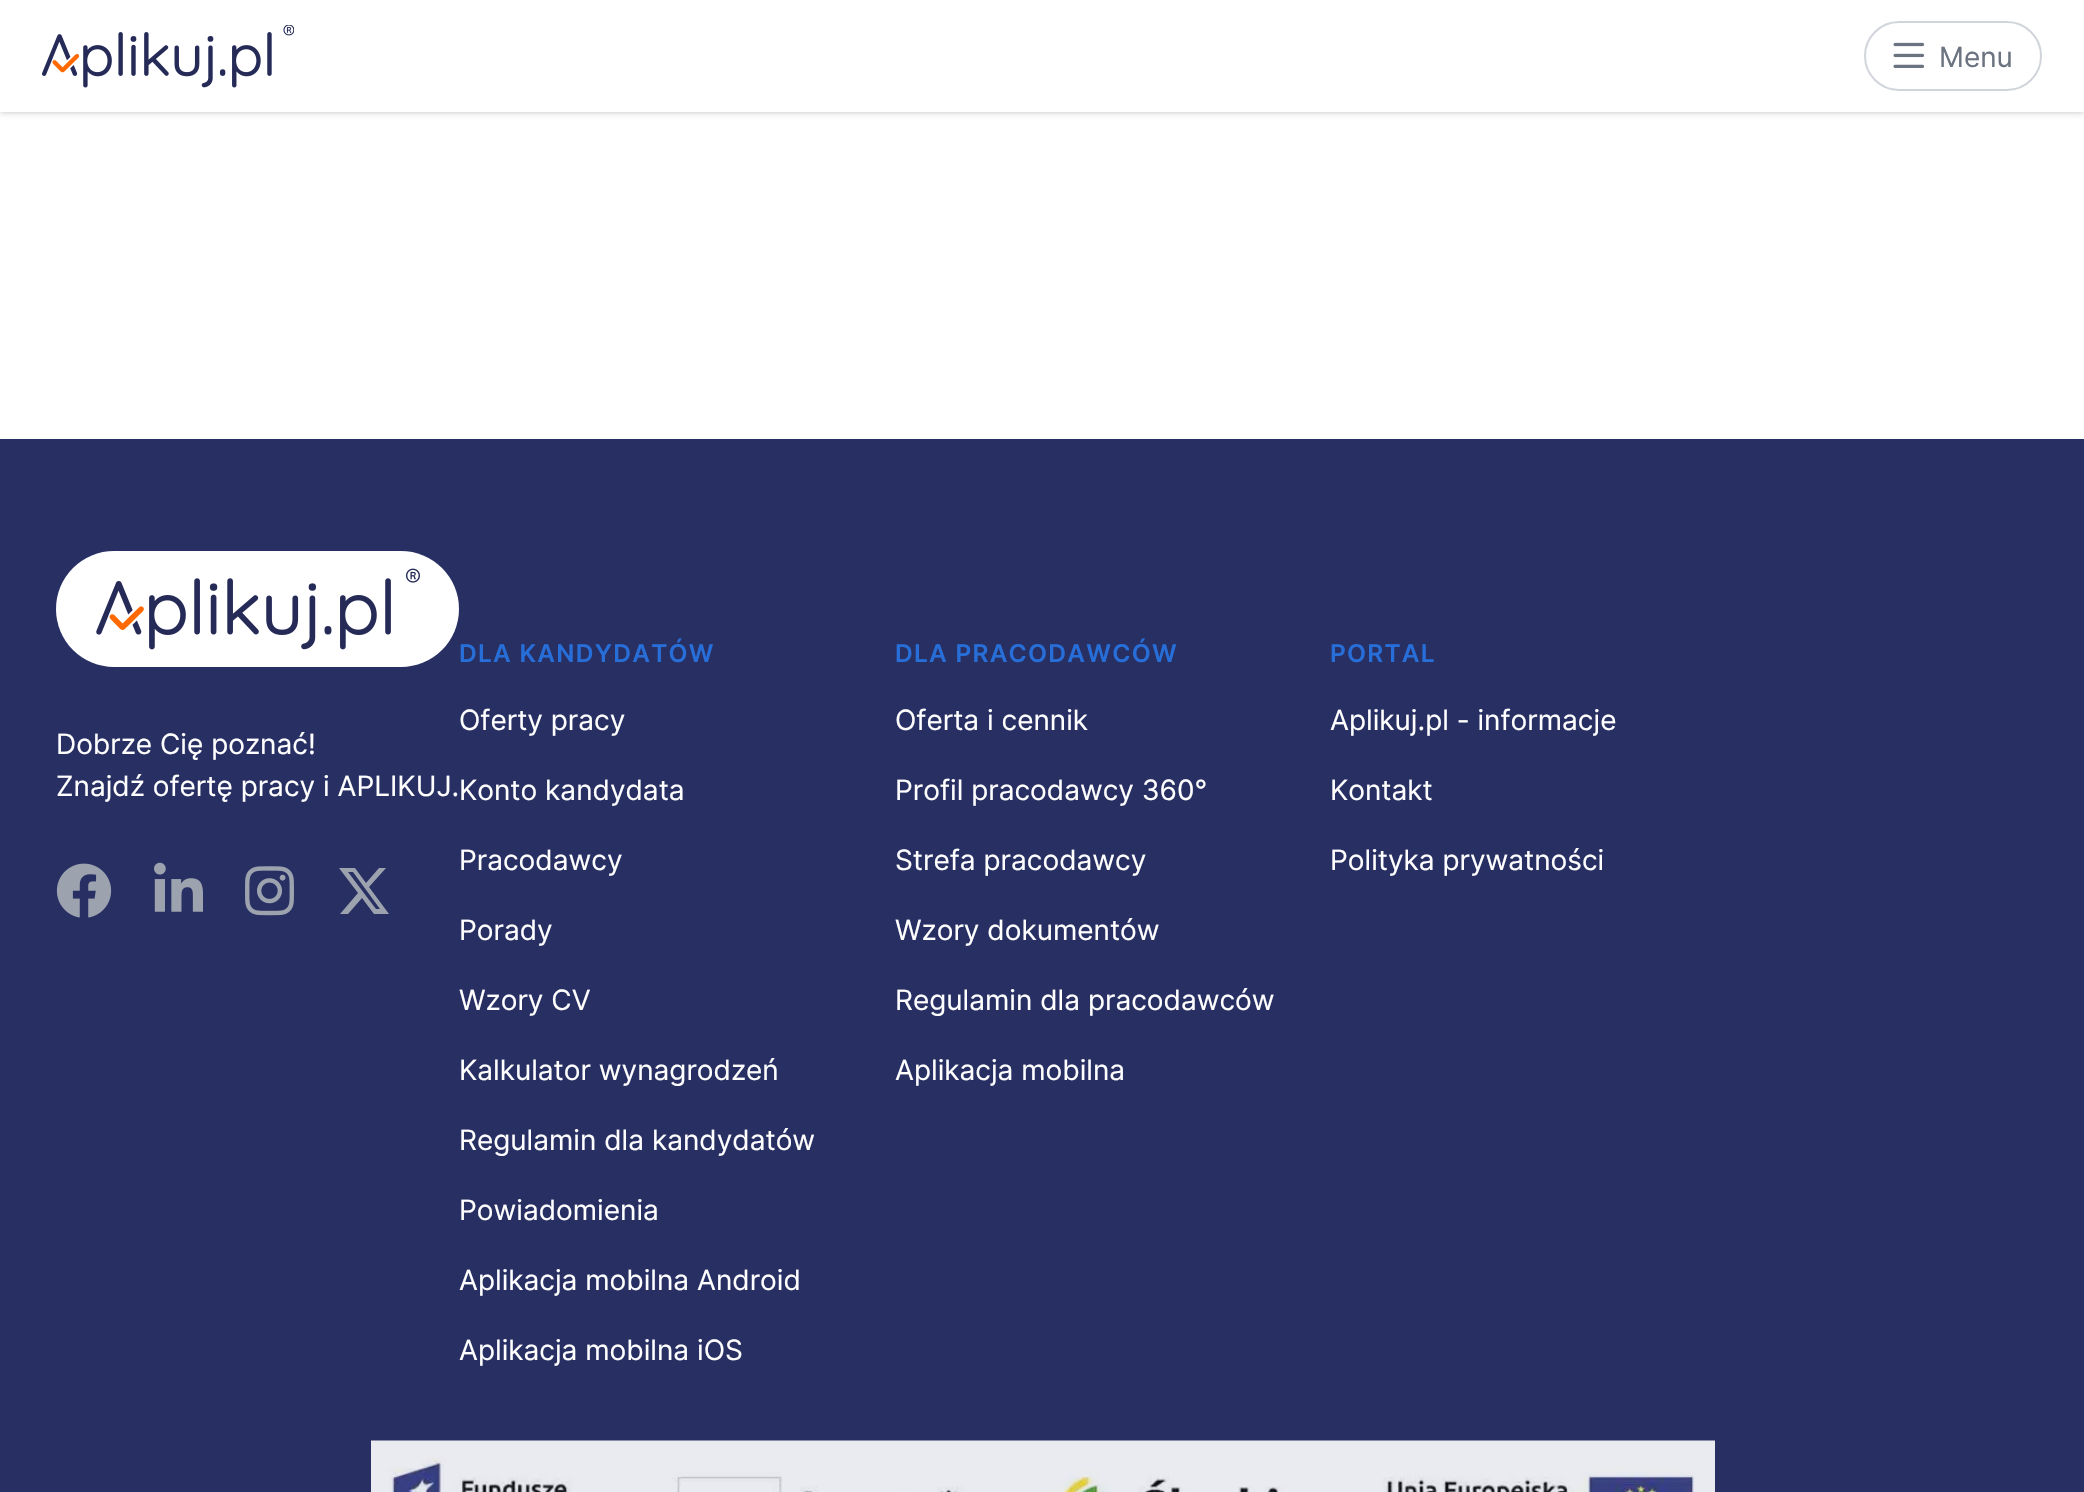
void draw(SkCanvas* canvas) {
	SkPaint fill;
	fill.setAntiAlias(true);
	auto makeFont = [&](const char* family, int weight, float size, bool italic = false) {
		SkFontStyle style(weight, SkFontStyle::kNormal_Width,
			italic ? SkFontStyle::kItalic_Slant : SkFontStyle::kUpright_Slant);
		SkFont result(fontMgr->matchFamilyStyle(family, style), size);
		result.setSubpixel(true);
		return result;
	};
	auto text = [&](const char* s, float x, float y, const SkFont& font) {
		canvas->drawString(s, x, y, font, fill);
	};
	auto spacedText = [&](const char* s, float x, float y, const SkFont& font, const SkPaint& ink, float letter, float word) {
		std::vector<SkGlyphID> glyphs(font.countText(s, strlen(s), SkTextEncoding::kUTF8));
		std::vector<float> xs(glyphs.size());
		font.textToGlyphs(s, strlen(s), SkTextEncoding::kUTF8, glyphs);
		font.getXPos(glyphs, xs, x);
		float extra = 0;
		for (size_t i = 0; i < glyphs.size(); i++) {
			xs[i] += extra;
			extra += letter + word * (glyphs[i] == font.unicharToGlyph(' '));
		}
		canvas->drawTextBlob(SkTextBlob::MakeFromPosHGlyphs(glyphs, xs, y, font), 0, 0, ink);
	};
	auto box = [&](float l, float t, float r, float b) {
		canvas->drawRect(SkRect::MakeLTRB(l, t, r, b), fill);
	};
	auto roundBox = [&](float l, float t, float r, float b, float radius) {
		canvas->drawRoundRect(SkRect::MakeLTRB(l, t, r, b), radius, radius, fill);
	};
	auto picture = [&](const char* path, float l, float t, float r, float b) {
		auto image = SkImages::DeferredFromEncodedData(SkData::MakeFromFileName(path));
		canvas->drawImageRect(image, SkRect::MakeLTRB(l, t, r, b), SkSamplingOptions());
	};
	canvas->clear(0xFFFFFFFF);
	fill.setColor(0x1A000000);
	fill.setMaskFilter(SkMaskFilter::MakeBlur(kNormal_SkBlurStyle, 2));
	canvas->drawRect(SkRect::MakeLTRB(2, 4, 2083, 112), fill);
	fill.setMaskFilter(nullptr);
	fill.setMaskFilter(SkMaskFilter::MakeBlur(kNormal_SkBlurStyle, 2.5f));
	canvas->drawRect(SkRect::MakeLTRB(0, 2, 2084, 114), fill);
	fill.setMaskFilter(nullptr);
	fill.setColor(0xFFFFFFFF);
	box(0, 0, 2084, 112);
	picture("image0.png", 42, 25, 294, 88);
	fill.setStyle(SkPaint::kStroke_Style);
	fill.setStrokeWidth(2);
	fill.setColor(0xFFD1D5DB);
	canvas->drawRoundRect(SkRect::MakeLTRB(1865, 22, 2041, 90), 34, 34, fill);
	picture("image1.png", 1893, 42, 1925, 68);
	fill.setStyle(SkPaint::kFill_Style);
	fill.setColor(0xFF272F63);
	box(0, 439, 2084, 1492);
	fill.setColor(0xFFFFFFFF);
	roundBox(56, 551, 459, 667, 58);
	picture("image2.png", 96, 568, 420, 650);
	picture("image3.png", 56, 863, 112, 918);
	picture("image4.png", 154, 862, 203, 912);
	picture("image5.png", 245, 866, 294, 916);
	fill.setColor(0xFF9CA3AF);
	canvas->drawPath(SkPathBuilder().moveTo(379, 868).lineTo(386, 868).lineTo(369, 887).lineTo(389, 914).lineTo(374, 914).lineTo(362, 898).lineTo(348, 914).lineTo(340, 914).lineTo(358, 893).lineTo(339, 868).lineTo(355, 868).lineTo(366, 883).close().moveTo(376, 909).lineTo(380, 909).lineTo(353, 872).lineTo(348, 872).close().detach(), fill);
	picture("image6.png", 371, 1440, 1715, 1492);
	auto font1 = makeFont("Inter", 400, 28);
	fill.setColor(0xFF6B7280);
	text("Menu", 1939, 67, font1);
	fill.setColor(0xFFFFFFFF);
	text("Dobrze Cię poznać!", 56, 754, font1);
	text("Znajdź ofertę pracy i APLIKUJ.", 56, 796, font1);
	auto font2 = makeFont("Inter", 600, 24.5f);
	fill.setColor(0xFF276ED8);
	spacedText("DLA KANDYDATÓW", 459, 662, font2, fill, 1.25f, 0);
	fill.setColor(0xFFFFFFFF);
	text("Oferty pracy", 459, 730, font1);
	text("Konto kandydata", 459, 800, font1);
	text("Pracodawcy", 459, 870, font1);
	text("Porady", 459, 940, font1);
	text("Wzory CV", 459, 1010, font1);
	text("Kalkulator wynagrodzeń", 459, 1080, font1);
	text("Regulamin dla kandydatów", 459, 1150, font1);
	text("Powiadomienia", 459, 1220, font1);
	text("Aplikacja mobilna Android", 459, 1290, font1);
	text("Aplikacja mobilna iOS", 459, 1360, font1);
	fill.setColor(0xFF276ED8);
	spacedText("DLA PRACODAWCÓW", 895, 662, font2, fill, 1.25f, 0);
	fill.setColor(0xFFFFFFFF);
	text("Oferta i cennik", 895, 730, font1);
	text("Profil pracodawcy 360°", 895, 800, font1);
	text("Strefa pracodawcy", 895, 870, font1);
	text("Wzory dokumentów", 895, 940, font1);
	text("Regulamin dla pracodawców", 895, 1010, font1);
	text("Aplikacja mobilna", 895, 1080, font1);
	fill.setColor(0xFF276ED8);
	spacedText("PORTAL", 1330, 662, font2, fill, 1.25f, 0);
	fill.setColor(0xFFFFFFFF);
	text("Aplikuj.pl - informacje", 1330, 730, font1);
	text("Kontakt", 1330, 800, font1);
	text("Polityka prywatności", 1330, 870, font1);
}
